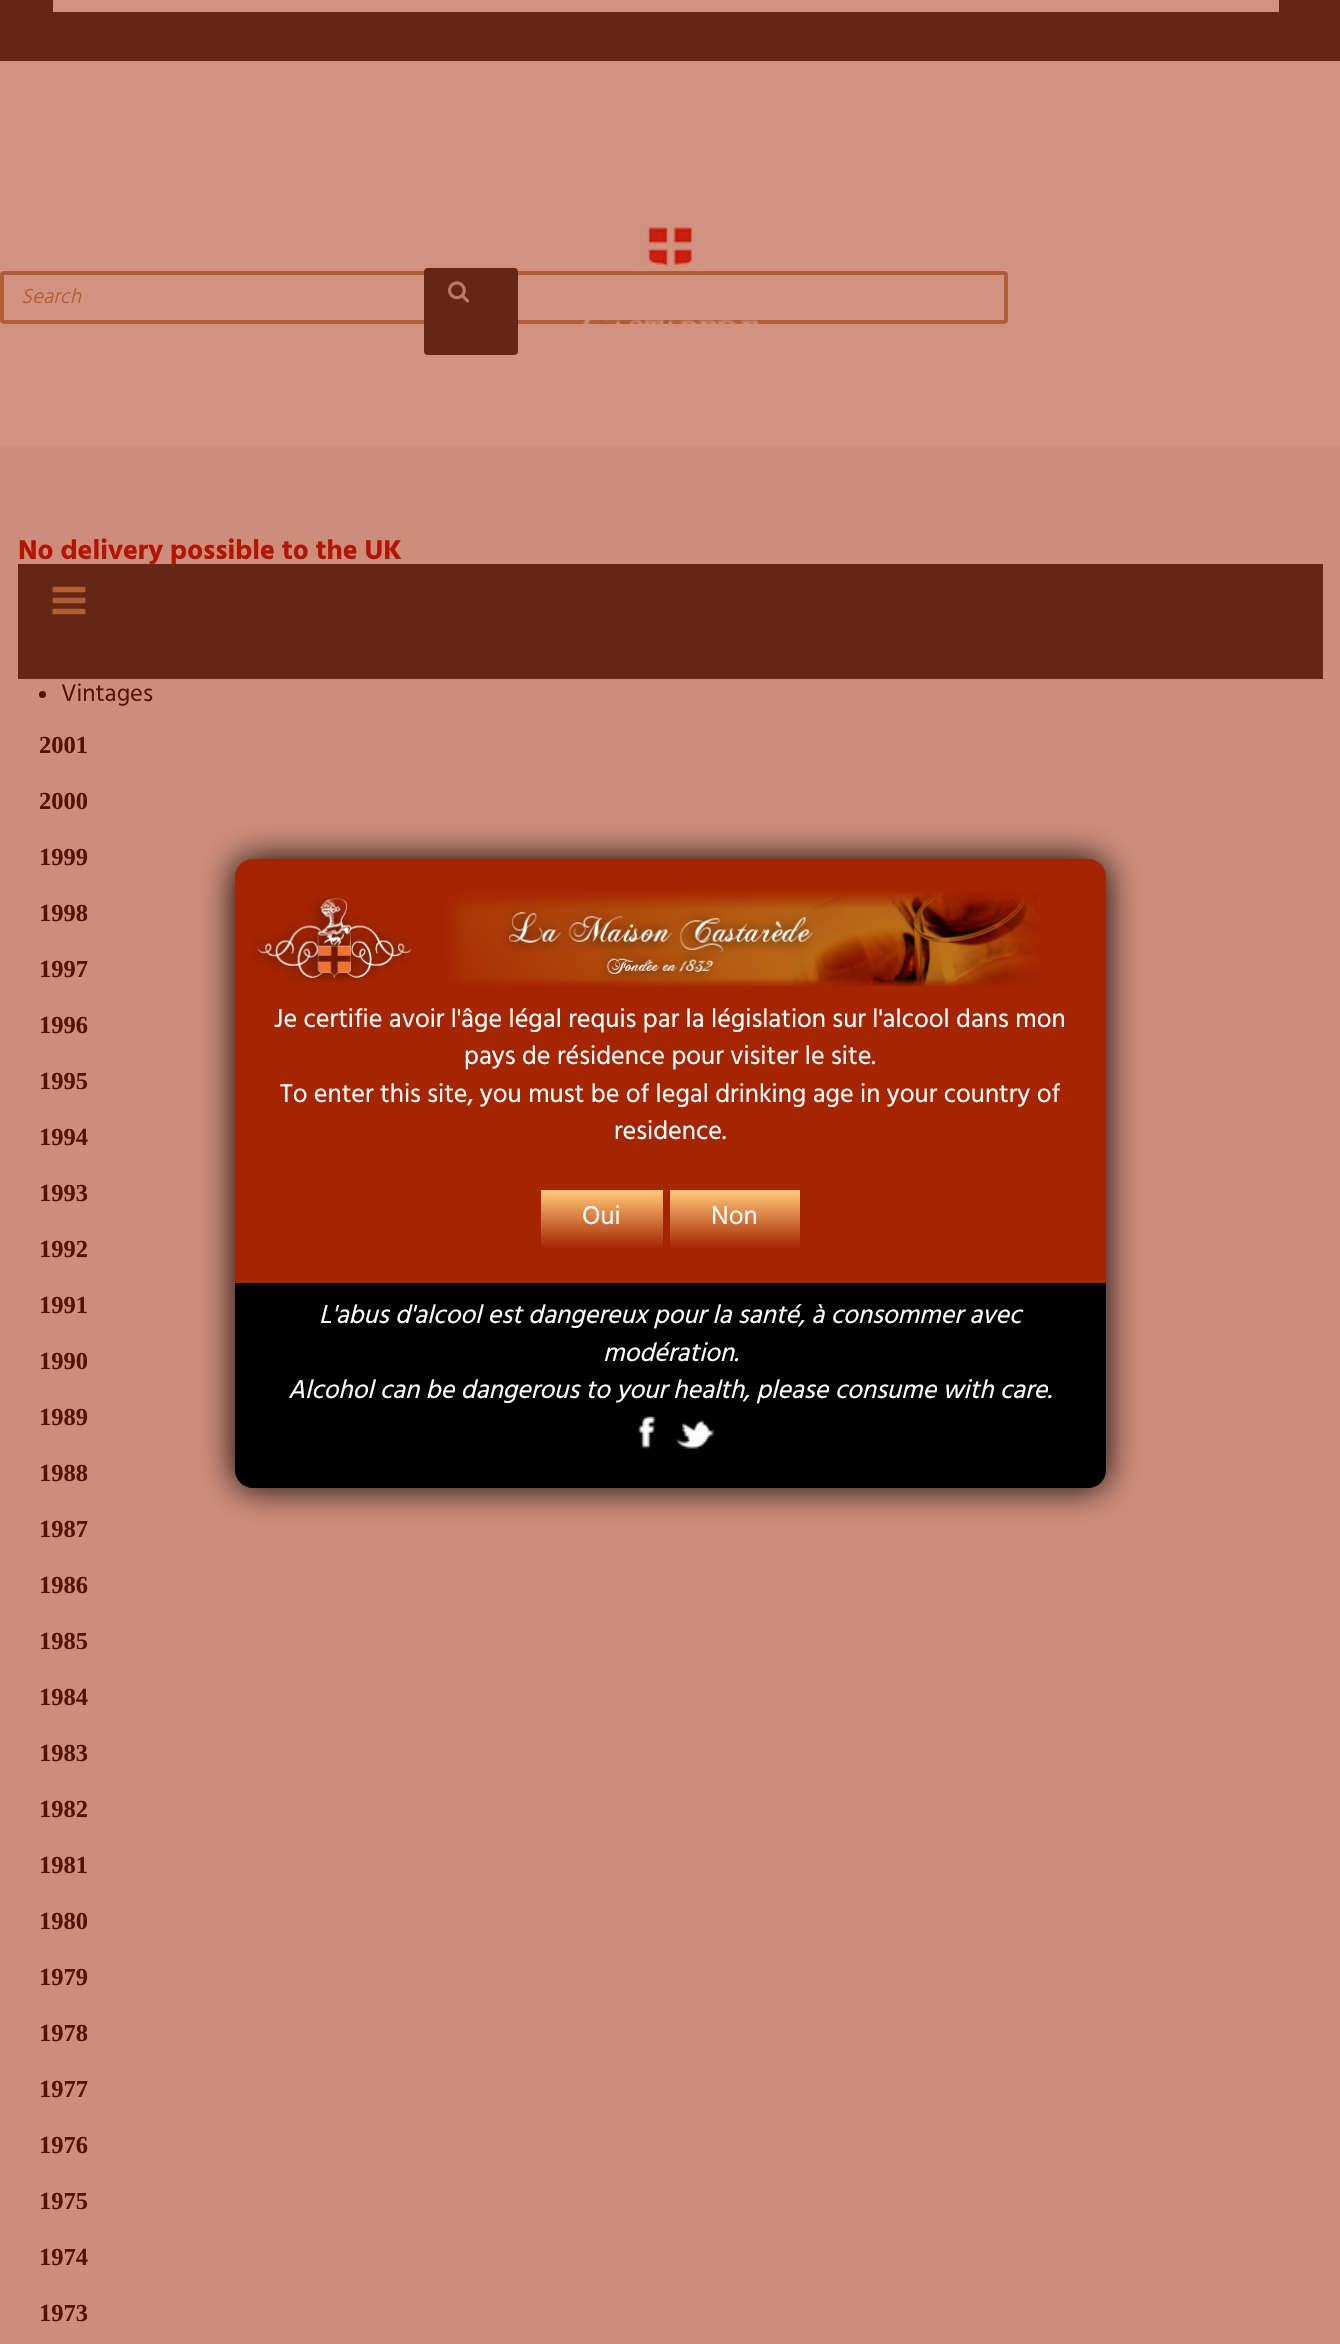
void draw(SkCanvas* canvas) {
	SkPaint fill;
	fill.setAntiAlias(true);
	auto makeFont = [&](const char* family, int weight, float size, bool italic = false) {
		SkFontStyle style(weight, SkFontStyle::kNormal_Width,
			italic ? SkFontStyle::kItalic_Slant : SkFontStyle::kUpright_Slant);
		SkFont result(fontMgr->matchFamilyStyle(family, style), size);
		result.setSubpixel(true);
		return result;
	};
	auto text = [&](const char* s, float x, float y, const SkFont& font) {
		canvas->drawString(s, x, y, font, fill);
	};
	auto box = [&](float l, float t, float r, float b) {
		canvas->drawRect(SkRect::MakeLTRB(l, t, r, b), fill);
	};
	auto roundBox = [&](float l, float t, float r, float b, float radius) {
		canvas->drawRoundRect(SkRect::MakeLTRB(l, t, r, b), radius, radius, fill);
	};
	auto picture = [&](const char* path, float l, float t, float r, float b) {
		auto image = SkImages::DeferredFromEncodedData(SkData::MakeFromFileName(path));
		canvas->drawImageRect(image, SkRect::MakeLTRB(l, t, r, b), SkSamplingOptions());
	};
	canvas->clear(0xFFCD8D7B);
	fill.setColor(0xFF662614);
	box(0, 0, 1340, 61);
	fill.setColor(0xFFD29280);
	box(0, 61, 1340, 446);
	fill.setStyle(SkPaint::kStroke_Style);
	fill.setStrokeWidth(4);
	fill.setColor(0xFFB15E37);
	canvas->drawRoundRect(SkRect::MakeLTRB(2, 273, 1006, 322), 2, 2, fill);
	picture("image0.png", 582, 227, 760, 324);
	fill.setStyle(SkPaint::kFill_Style);
	fill.setColor(0xFFD29280);
	box(53, 0, 1279, 12);
	fill.setColor(0xFF662614);
	roundBox(424, 268, 518, 355, 4);
	picture("image2.png", 448, 281, 470, 303);
	fill.setColor(0xFF531300);
	canvas->drawCircle(42.5f, 694.5f, 3.5f, fill);
	fill.setColor(0xFF000000);
	fill.setMaskFilter(SkMaskFilter::MakeBlur(kNormal_SkBlurStyle, 17.5f));
	canvas->drawRoundRect(SkRect::MakeLTRB(235, 859, 1106, 1488), 18, 18, fill);
	fill.setMaskFilter(nullptr);
	fill.setColor(0xFFA52500);
	canvas->drawPath(SkPathBuilder().moveTo(253, 859).lineTo(1088, 859).cubicTo(1098, 859, 1106, 867, 1106, 877).lineTo(1106, 1283).lineTo(235, 1283).lineTo(235, 877).cubicTo(235, 867, 243, 859, 253, 859).close().detach(), fill);
	picture("image3.png", 252, 891, 1040, 987);
	{
		const SkColor colors[] = {0xFFFFC477, 0xFFA52400};
		const float stops[] = {0.05f, 1};
		const SkPoint ends[] = {{602, 1189}, {602, 1249}};
		fill.setShader(SkGradientShader::MakeLinear(ends, colors, stops, 2, SkTileMode::kClamp));
		fill.setAlpha(255);
	}
	box(541, 1190, 663, 1248);
	{
		const SkColor colors[] = {0xFFFFC477, 0xFFA52400};
		const float stops[] = {0.05f, 1};
		const SkPoint ends[] = {{735, 1189}, {735, 1249}};
		fill.setShader(SkGradientShader::MakeLinear(ends, colors, stops, 2, SkTileMode::kClamp));
		fill.setAlpha(255);
	}
	box(670, 1190, 800, 1248);
	fill.setShader(nullptr);
	fill.setColor(0xFF000000);
	canvas->drawPath(SkPathBuilder().moveTo(235, 1283).lineTo(1106, 1283).lineTo(1106, 1470).cubicTo(1106, 1480, 1098, 1488, 1088, 1488).lineTo(253, 1488).cubicTo(243, 1488, 235, 1480, 235, 1470).close().detach(), fill);
	picture("image4.png", 638, 1416, 655, 1449);
	picture("image5.png", 675, 1420, 715, 1449);
	auto font1 = makeFont("Hind", 300, 21, true);
	fill.setColor(0xFFB15E37);
	text("Search", 21, 303, font1);
	auto font2 = makeFont("Hind", 700, 28);
	fill.setColor(0xFFB41502);
	text("No delivery possible to the UK", 18, 559, font2);
	fill.setColor(0xFF662614);
	box(18, 564, 1323, 679);
	picture("image1.png", 52, 586, 86, 615);
	auto font3 = makeFont("Hind", 400, 24.5f);
	fill.setColor(0xFF531300);
	text("Vintages", 61, 701, font3);
	auto font4 = makeFont("Liberation Serif", 700, 24.5f);
	text("2001", 39, 753, font4);
	text("2000", 39, 809, font4);
	text("1999", 39, 865, font4);
	text("1998", 39, 921, font4);
	text("1997", 39, 977, font4);
	text("1996", 39, 1033, font4);
	text("1995", 39, 1089, font4);
	text("1994", 39, 1145, font4);
	text("1993", 39, 1201, font4);
	text("1992", 39, 1257, font4);
	text("1991", 39, 1313, font4);
	text("1990", 39, 1369, font4);
	text("1989", 39, 1425, font4);
	text("1988", 39, 1481, font4);
	text("1987", 39, 1537, font4);
	text("1986", 39, 1593, font4);
	text("1985", 39, 1649, font4);
	text("1984", 39, 1705, font4);
	text("1983", 39, 1761, font4);
	text("1982", 39, 1817, font4);
	text("1981", 39, 1873, font4);
	text("1980", 39, 1929, font4);
	text("1979", 39, 1985, font4);
	text("1978", 39, 2041, font4);
	text("1977", 39, 2097, font4);
	text("1976", 39, 2153, font4);
	text("1975", 39, 2209, font4);
	text("1974", 39, 2265, font4);
	text("1973", 39, 2321, font4);
	auto font5 = makeFont("Hind", 400, 26.25f);
	fill.setColor(0xFFFFFFFF);
	text("Je certifie avoir l'âge légal requis par la législation sur l'alcool dans mon", 274, 1027, font5);
	text("pays de résidence pour visiter le site.", 464, 1064, font5);
	text("To enter this site, you must be of legal drinking age in your country of", 280, 1102, font5);
	text("residence.", 614, 1139, font5);
	text("Oui", 582, 1224, font5);
	text("Non", 711, 1224, font5);
	auto font6 = makeFont("Hind", 400, 26.25f, true);
	text("L'abus d'alcool est dangereux pour la santé, à consommer avec", 319, 1323, font6);
	text("modération.", 603, 1361, font6);
	text("Alcohol can be dangerous to your health, please consume with care.", 288, 1398, font6);
}
